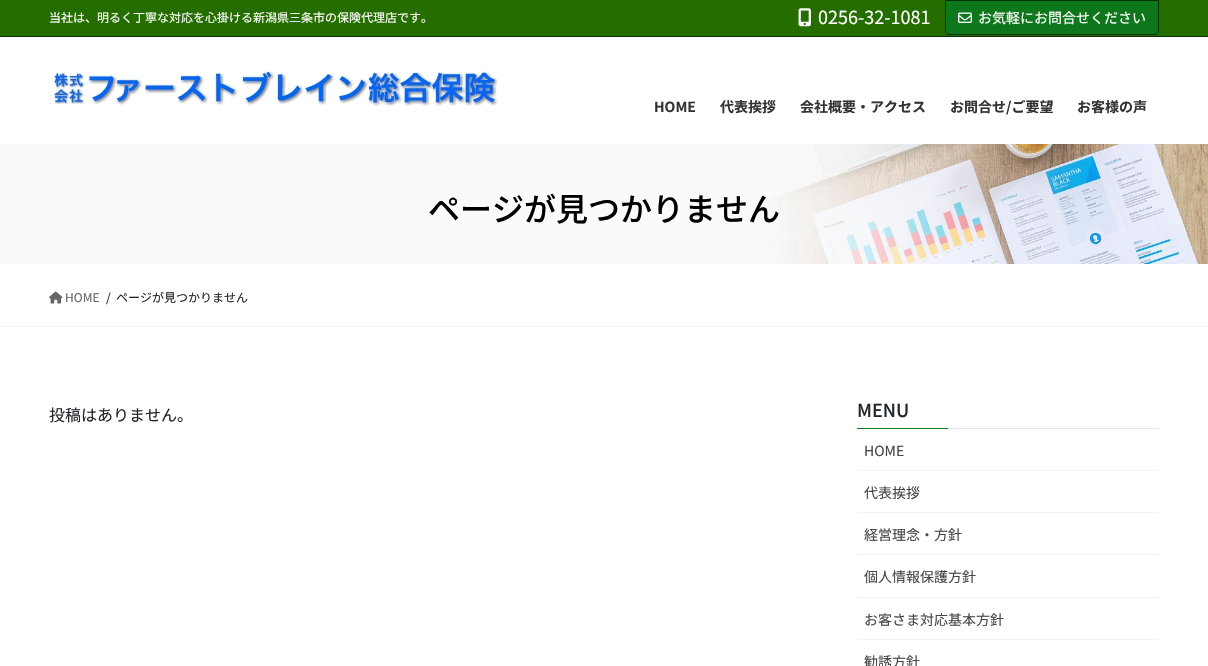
void draw(SkCanvas* canvas) {
	SkPaint fill;
	fill.setAntiAlias(true);
	auto makeFont = [&](const char* family, int weight, float size, bool italic = false) {
		SkFontStyle style(weight, SkFontStyle::kNormal_Width,
			italic ? SkFontStyle::kItalic_Slant : SkFontStyle::kUpright_Slant);
		SkFont result(fontMgr->matchFamilyStyle(family, style), size);
		result.setSubpixel(true);
		return result;
	};
	auto text = [&](const char* s, float x, float y, const SkFont& font) {
		canvas->drawString(s, x, y, font, fill);
	};
	auto box = [&](float l, float t, float r, float b) {
		canvas->drawRect(SkRect::MakeLTRB(l, t, r, b), fill);
	};
	auto picture = [&](const char* path, float l, float t, float r, float b) {
		auto image = SkImages::DeferredFromEncodedData(SkData::MakeFromFileName(path));
		canvas->drawImageRect(image, SkRect::MakeLTRB(l, t, r, b), SkSamplingOptions());
	};
	canvas->clear(0xFFFFFFFF);
	fill.setColor(0xFF266D00);
	box(0, 0, 1208, 36);
	fill.setColor(0xFF0B2D09);
	box(0, 36, 1208, 37);
	picture("image0.png", 798, 8, 811, 27);
	fill.setColor(0xFF0F771B);
	canvas->drawPath(SkPathBuilder().moveTo(945.5f, 0.5f).lineTo(1158.5f, 0.5f).lineTo(1158.5f, 31).cubicTo(1158.5f, 33, 1157, 34.5f, 1155, 34.5f).lineTo(949, 34.5f).cubicTo(947, 34.5f, 945.5f, 33, 945.5f, 31).close().detach(), fill);
	fill.setStyle(SkPaint::kStroke_Style);
	fill.setStrokeWidth(1);
	fill.setColor(0xFF003300);
	canvas->drawPath(SkPathBuilder().moveTo(945.5f, 0.5f).lineTo(1158.5f, 0.5f).lineTo(1158.5f, 31).cubicTo(1158.5f, 33, 1157, 34.5f, 1155, 34.5f).lineTo(949, 34.5f).cubicTo(947, 34.5f, 945.5f, 33, 945.5f, 31).close().detach(), fill);
	picture("image1.png", 958, 12, 972, 23);
	picture("image2.png", 53, 71, 498, 106);
	picture("image3.png", 0, 144, 1208, 264);
	fill.setStyle(SkPaint::kFill_Style);
	fill.setColor(0xFFF2F2F2);
	box(0, 326, 1208, 327);
	picture("image4.png", 49, 291, 63, 304);
	fill.setColor(0xFFE6E6E6);
	box(948, 428, 1159, 429);
	fill.setColor(0xFF0F771B);
	box(857, 428, 948, 429);
	fill.setColor(0xFFF2F2F2);
	box(857, 470, 1159, 471);
	box(857, 512, 1159, 513);
	box(857, 554, 1159, 555);
	box(857, 597, 1159, 598);
	box(857, 639, 1159, 640);
	auto font1 = makeFont("Noto Sans JP", 400, 12);
	fill.setColor(0xFFFFFFFF);
	text("当社は、明るく丁寧な対応を心掛ける新潟県三条市の保険代理店です。", 49, 22, font1);
	auto font2 = makeFont("Noto Sans JP", 400, 18);
	text("0256-32-1081", 818, 24, font2);
	auto font3 = makeFont("Noto Sans JP", 400, 14);
	text("お気軽にお問合せください", 978, 23, font3);
	auto font4 = makeFont("Noto Sans JP", 700, 14);
	fill.setColor(0xFF333333);
	text("HOME", 654, 112, font4);
	text("代表挨拶", 720, 112, font4);
	text("会社概要・アクセス", 800, 112, font4);
	text("お問合せ/ご要望", 950, 112, font4);
	text("お客様の声", 1077, 112, font4);
	auto font5 = makeFont("Noto Sans JP", 500, 32);
	fill.setColor(0xFF000000);
	text("ページが見つかりません", 428, 221, font5);
	fill.setColor(0xFF666666);
	text("HOME", 65, 302, font1);
	fill.setColor(0xFF212529);
	text("/", 106, 302, font1);
	text("ページが見つかりません", 116, 302, font1);
	auto font6 = makeFont("Noto Sans JP", 400, 16);
	text("投稿はありません。", 49, 421, font6);
	auto font7 = makeFont("Noto Sans JP", 500, 18);
	text("MENU", 857, 417, font7);
	fill.setColor(0xFF464646);
	text("HOME", 864, 456, font3);
	text("代表挨拶", 864, 498, font3);
	text("経営理念・方針", 864, 540, font3);
	text("個人情報保護方針", 864, 582, font3);
	text("お客さま対応基本方針", 864, 625, font3);
	text("勧誘方針", 864, 667, font3);
}
